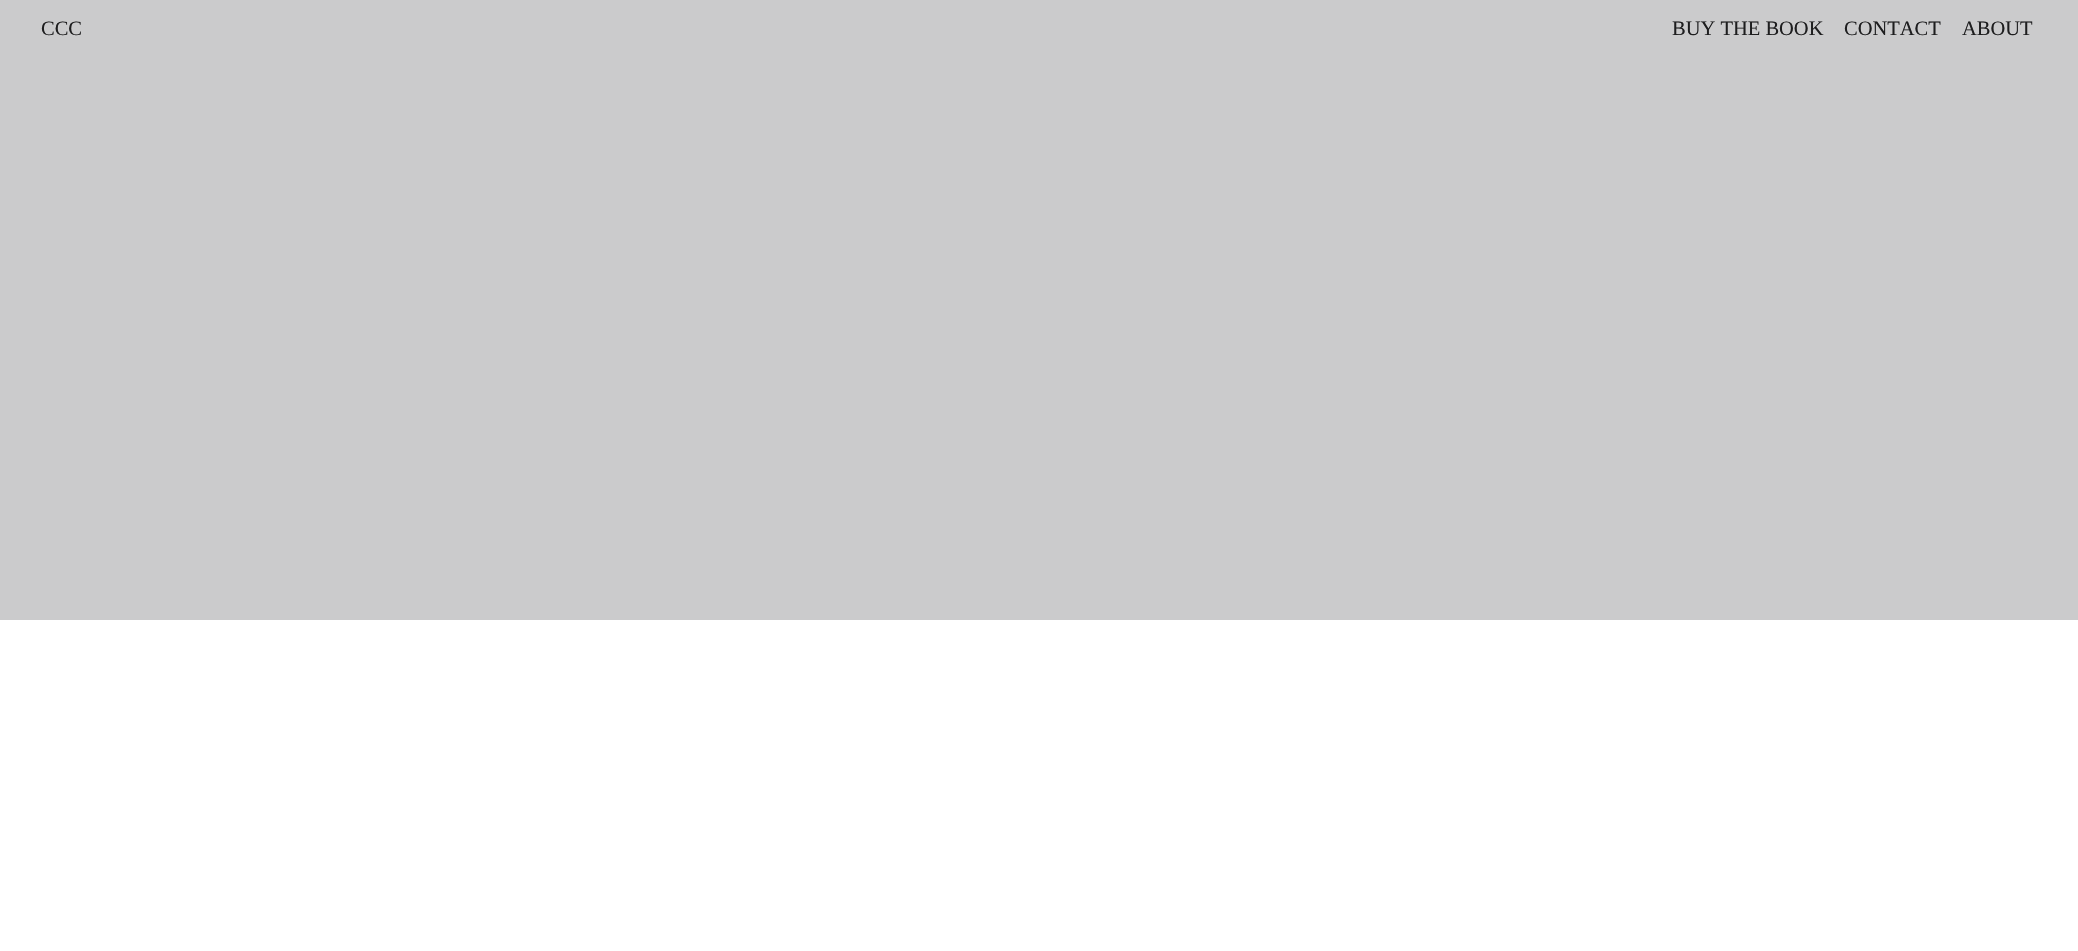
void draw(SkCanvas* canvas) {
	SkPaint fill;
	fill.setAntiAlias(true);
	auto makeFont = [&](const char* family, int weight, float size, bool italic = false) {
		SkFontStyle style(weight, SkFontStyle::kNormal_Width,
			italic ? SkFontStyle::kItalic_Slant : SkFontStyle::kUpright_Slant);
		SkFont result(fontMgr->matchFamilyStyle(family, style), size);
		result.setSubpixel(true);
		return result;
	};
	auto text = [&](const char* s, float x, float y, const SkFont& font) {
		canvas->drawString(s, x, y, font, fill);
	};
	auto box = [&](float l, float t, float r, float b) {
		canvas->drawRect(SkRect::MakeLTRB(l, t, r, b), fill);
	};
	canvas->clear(0xFFFFFFFF);
	fill.setColor(0xFFCBCBCC);
	box(0, 0, 2078, 620);
	auto font1 = makeFont("Liberation Serif", 400, 20.5f);
	fill.setColor(0xFF1E1E1F);
	text("CCC", 41, 35, font1);
	text("BUY THE BOOK", 1672, 35, font1);
	text("CONTACT", 1844, 35, font1);
	text("ABOUT", 1962, 35, font1);
}
